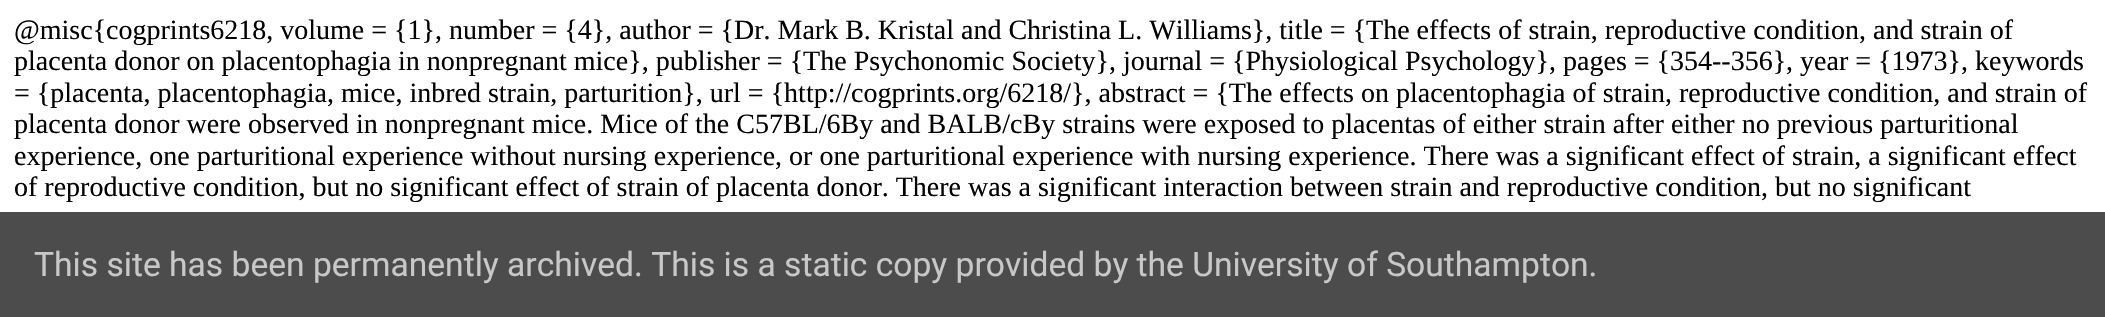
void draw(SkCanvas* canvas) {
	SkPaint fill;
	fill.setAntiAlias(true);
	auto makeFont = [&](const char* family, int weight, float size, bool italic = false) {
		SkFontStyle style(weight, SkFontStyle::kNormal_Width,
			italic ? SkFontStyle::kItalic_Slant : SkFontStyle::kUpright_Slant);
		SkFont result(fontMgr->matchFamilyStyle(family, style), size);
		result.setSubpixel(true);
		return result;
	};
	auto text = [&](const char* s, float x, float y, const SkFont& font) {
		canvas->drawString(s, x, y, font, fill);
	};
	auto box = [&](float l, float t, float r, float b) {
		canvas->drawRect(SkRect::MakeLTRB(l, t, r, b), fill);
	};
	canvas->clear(0xFFFFFFFF);
	fill.setColor(0xB3000000);
	box(0, 212, 2105, 317);
	auto font1 = makeFont("Liberation Serif", 400, 28);
	fill.setColor(0xFF000000);
	text("@misc{cogprints6218, volume = {1}, number = {4}, author = {Dr. Mark B. Kristal and Christina L. Williams}, title = {The effects of strain, reproductive condition, and strain of", 14, 39, font1);
	text("placenta donor on placentophagia in nonpregnant mice}, publisher = {The Psychonomic Society}, journal = {Physiological Psychology}, pages = {354--356}, year = {1973}, keywords", 14, 70, font1);
	text("= {placenta, placentophagia, mice, inbred strain, parturition}, url = {http://cogprints.org/6218/}, abstract = {The effects on placentophagia of strain, reproductive condition, and strain of", 14, 102, font1);
	text("placenta donor were observed in nonpregnant mice. Mice of the C57BL/6By and BALB/cBy strains were exposed to placentas of either strain after either no previous parturitional", 14, 133, font1);
	text("experience, one parturitional experience without nursing experience, or one parturitional experience with nursing experience. There was a significant effect of strain, a significant effect", 14, 165, font1);
	text("of reproductive condition, but no significant effect of strain of placenta donor. There was a significant interaction between strain and reproductive condition, but no significant", 14, 196, font1);
	auto font2 = makeFont("Roboto", 400, 33.6f);
	fill.setColor(0xFFC8C8C8);
	text("This site has been permanently archived. This is a static copy provided by the University of Southampton.", 34, 276, font2);
}
